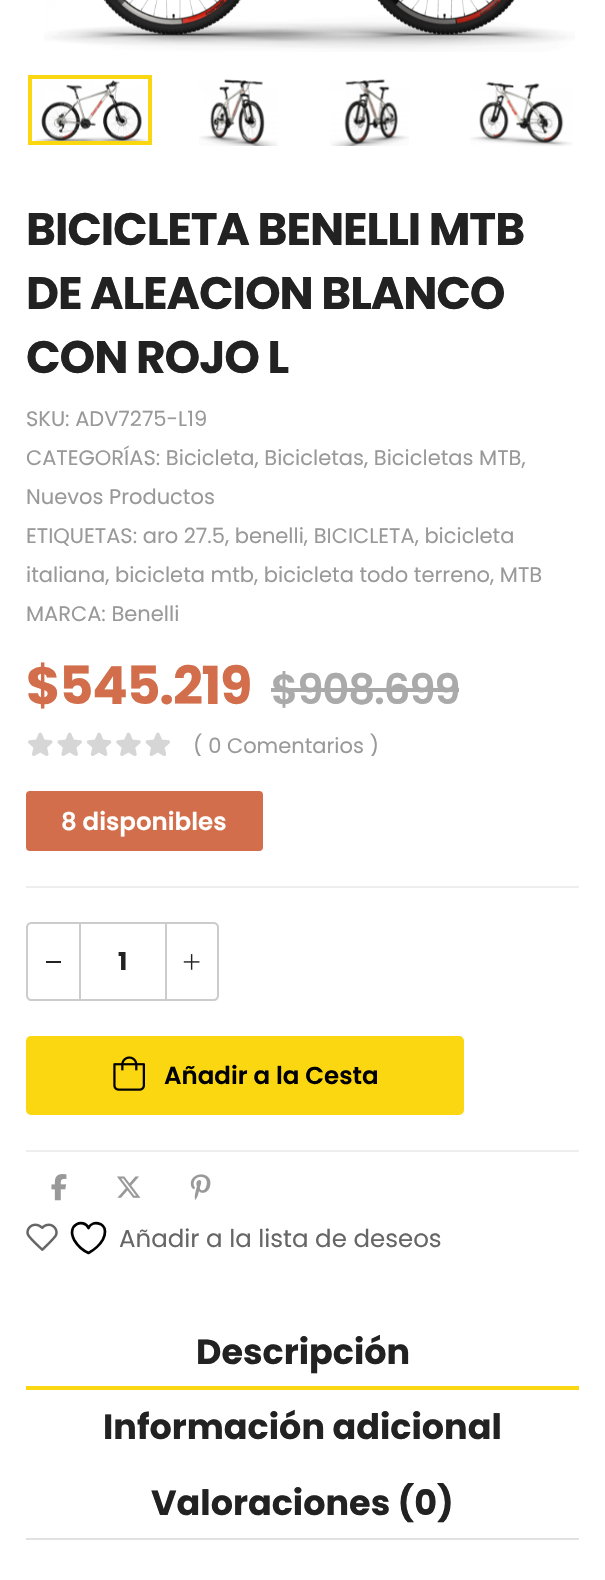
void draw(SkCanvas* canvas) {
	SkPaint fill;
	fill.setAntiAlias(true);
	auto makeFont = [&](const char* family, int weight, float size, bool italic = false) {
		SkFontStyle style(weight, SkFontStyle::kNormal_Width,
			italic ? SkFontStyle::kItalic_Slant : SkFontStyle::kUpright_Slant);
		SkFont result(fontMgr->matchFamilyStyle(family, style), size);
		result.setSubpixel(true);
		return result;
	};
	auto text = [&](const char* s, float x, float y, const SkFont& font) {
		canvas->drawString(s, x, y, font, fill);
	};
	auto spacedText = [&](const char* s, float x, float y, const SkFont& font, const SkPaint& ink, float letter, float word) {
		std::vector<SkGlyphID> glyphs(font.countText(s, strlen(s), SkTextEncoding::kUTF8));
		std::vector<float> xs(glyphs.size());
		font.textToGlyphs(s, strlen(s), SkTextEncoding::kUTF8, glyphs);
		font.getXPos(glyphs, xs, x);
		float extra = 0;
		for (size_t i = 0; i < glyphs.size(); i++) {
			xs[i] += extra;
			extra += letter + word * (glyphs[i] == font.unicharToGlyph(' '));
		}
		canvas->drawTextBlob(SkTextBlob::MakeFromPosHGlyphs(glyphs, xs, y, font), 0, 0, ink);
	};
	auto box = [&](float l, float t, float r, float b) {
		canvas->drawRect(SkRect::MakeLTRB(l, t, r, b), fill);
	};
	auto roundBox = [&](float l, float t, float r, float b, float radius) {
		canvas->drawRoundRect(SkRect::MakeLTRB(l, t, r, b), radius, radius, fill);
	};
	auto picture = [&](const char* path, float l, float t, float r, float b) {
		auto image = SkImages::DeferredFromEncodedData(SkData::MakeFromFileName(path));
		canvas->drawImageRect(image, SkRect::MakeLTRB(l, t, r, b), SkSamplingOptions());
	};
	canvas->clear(0xFFFFFFFF);
	picture("image0.png", 44, 0, 575, 52);
	picture("image1.png", 34, 80, 148, 141);
	fill.setStyle(SkPaint::kStroke_Style);
	fill.setStrokeWidth(4);
	fill.setColor(0xFFFAD710);
	canvas->drawRect(SkRect::MakeLTRB(30, 77, 150, 143), fill);
	picture("image2.png", 199, 79, 278, 146);
	picture("image3.png", 330, 79, 409, 146);
	picture("image4.png", 470, 81, 573, 146);
	fill.setStyle(SkPaint::kFill_Style);
	fill.setColor(0xFFAAAAAA);
	box(271, 688, 459, 692);
	picture("image5.png", 28, 732, 170, 756);
	fill.setColor(0xFFD26E4B);
	roundBox(26, 791, 263, 851, 4);
	fill.setColor(0xFFEEEEEE);
	box(26, 886, 579, 888);
	fill.setStyle(SkPaint::kStroke_Style);
	fill.setStrokeWidth(2);
	fill.setColor(0xFFCCCCCC);
	canvas->drawPath(SkPathBuilder().moveTo(31, 923).lineTo(80, 923).lineTo(80, 1000).lineTo(31, 1000).cubicTo(29, 1000, 27, 998, 27, 996).lineTo(27, 927).cubicTo(27, 925, 29, 923, 31, 923).close().detach(), fill);
	fill.setStyle(SkPaint::kFill_Style);
	fill.setColor(0xFF222222);
	box(46, 961, 61, 963);
	fill.setColor(0xFFCCCCCC);
	box(81, 922, 165, 924);
	box(81, 999, 165, 1001);
	fill.setStyle(SkPaint::kStroke_Style);
	canvas->drawPath(SkPathBuilder().moveTo(166, 923).lineTo(214, 923).cubicTo(216, 923, 218, 925, 218, 927).lineTo(218, 996).cubicTo(218, 998, 216, 1000, 214, 1000).lineTo(166, 1000).close().detach(), fill);
	picture("image6.png", 183, 954, 200, 970);
	fill.setStyle(SkPaint::kFill_Style);
	fill.setColor(0xFFFAD710);
	roundBox(26, 1036, 464, 1115, 5);
	picture("image7.png", 113, 1056, 145, 1091);
	fill.setColor(0xFFEEEEEE);
	box(26, 1150, 579, 1152);
	picture("image8.png", 51, 1174, 67, 1201);
	picture("image9.png", 117, 1176, 141, 1198);
	picture("image10.png", 190, 1174, 211, 1200);
	picture("image11.png", 26, 1223, 58, 1251);
	fill.setStyle(SkPaint::kStroke_Style);
	fill.setStrokeWidth(2.7f);
	fill.setStrokeCap(SkPaint::kRound_Cap);
	fill.setStrokeJoin(SkPaint::kRound_Join);
	fill.setColor(0xFF000000);
	canvas->drawPath(SkPathBuilder().moveTo(105, 1231.5f).cubicTo(105, 1222.5f, 92, 1220, 88.5f, 1228).cubicTo(84, 1218, 65.5f, 1224, 74.5f, 1240.5f).cubicTo(77.5f, 1245.5f, 83, 1250.5f, 88.5f, 1253).cubicTo(88.5f, 1253, 105, 1244.5f, 105, 1231.5f).close().detach(), fill);
	fill.setStyle(SkPaint::kFill_Style);
	fill.setColor(0xFFE1E1E1);
	box(26, 1538, 579, 1540);
	fill.setColor(0xFFFAD710);
	box(26, 1386, 579, 1390);
	auto font1 = makeFont("Poppins", 700, 45.5f);
	fill.setColor(0xFF222222);
	spacedText("BICICLETA BENELLI MTB", 26, 245, font1, fill, -1.1f, 0);
	spacedText("DE ALEACION BLANCO", 26, 309, font1, fill, -1.1f, 0);
	spacedText("CON ROJO L", 26, 373, font1, fill, -1.1f, 0);
	auto font2 = makeFont("Poppins", 400, 21);
	fill.setColor(0xFF999999);
	text("SKU: ADV7275-L19", 26, 426, font2);
	text("CATEGORÍAS: Bicicleta, Bicicletas, Bicicletas MTB,", 26, 465, font2);
	text("Nuevos Productos", 26, 504, font2);
	text("ETIQUETAS: aro 27.5, benelli, BICICLETA, bicicleta", 26, 543, font2);
	text("italiana, bicicleta mtb, bicicleta todo terreno, MTB", 26, 582, font2);
	text("MARCA: Benelli", 26, 621, font2);
	auto font3 = makeFont("Poppins", 700, 52.5f);
	fill.setColor(0xFFD26E4B);
	spacedText("$545.219", 26, 704, font3, fill, -1.25f, 0);
	auto font4 = makeFont("Poppins", 600, 42);
	fill.setColor(0xFFAAAAAA);
	spacedText("$908.699", 271, 704, font4, fill, -1.25f, 0);
	canvas->save();
	canvas->clipRect(SkRect::MakeLTRB(193, 733, 378, 756));
	fill.setColor(0xFF999999);
	text("( 0 Comentarios )", 193, 753, font2);
	canvas->restore();
	auto font5 = makeFont("Poppins", 600, 24.5f);
	fill.setColor(0xFFFFFFFF);
	text("8 disponibles", 61, 830, font5);
	auto font6 = makeFont("Poppins", 700, 24.5f);
	fill.setColor(0xFF222222);
	text("1", 118, 970, font6);
	fill.setColor(0xFF000000);
	text("Añadir a la Cesta", 164, 1084, font5);
	auto font7 = makeFont("Poppins", 400, 24.5f);
	fill.setColor(0xFF666666);
	text("Añadir a la lista de deseos", 119, 1247, font7);
	auto font8 = makeFont("Poppins", 700, 35);
	fill.setColor(0xFF222222);
	text("Descripción", 196, 1364, font8);
	text("Información adicional", 103, 1439, font8);
	text("Valoraciones (0)", 151, 1515, font8);
}
